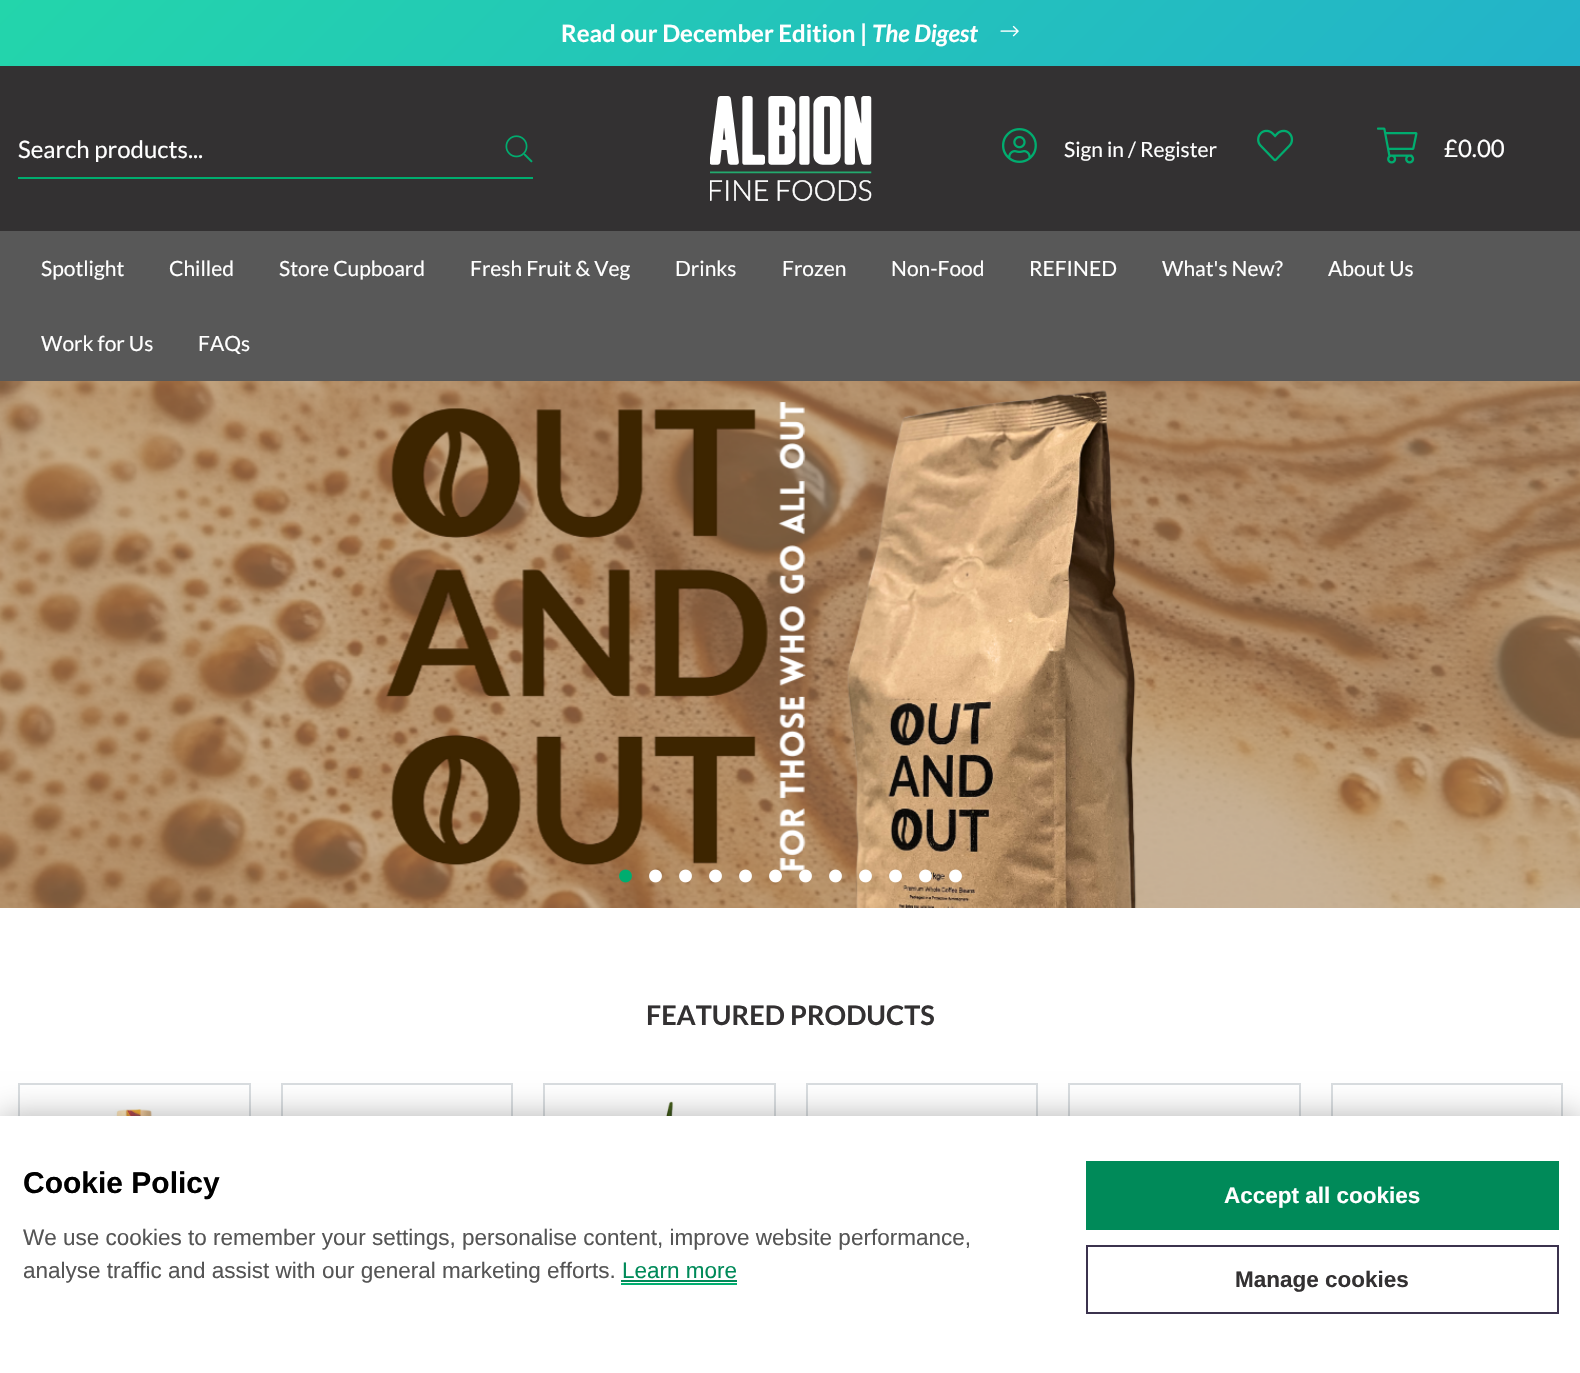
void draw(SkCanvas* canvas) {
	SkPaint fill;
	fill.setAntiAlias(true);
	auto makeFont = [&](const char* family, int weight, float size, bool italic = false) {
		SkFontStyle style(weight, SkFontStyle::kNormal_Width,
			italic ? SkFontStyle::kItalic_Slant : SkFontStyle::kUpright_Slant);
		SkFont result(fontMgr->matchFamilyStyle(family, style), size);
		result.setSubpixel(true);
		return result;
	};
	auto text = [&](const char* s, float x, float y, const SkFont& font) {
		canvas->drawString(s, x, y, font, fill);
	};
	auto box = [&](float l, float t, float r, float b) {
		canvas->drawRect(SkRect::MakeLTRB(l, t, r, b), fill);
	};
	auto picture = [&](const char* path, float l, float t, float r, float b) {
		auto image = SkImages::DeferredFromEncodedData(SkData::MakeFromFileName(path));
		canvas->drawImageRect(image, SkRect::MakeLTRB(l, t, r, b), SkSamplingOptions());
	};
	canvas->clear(0xFFFFFFFF);
	{
		const SkColor colors[] = {0xFFEE7752, 0xFFE73C7E, 0xFF23A6D5, 0xFF23D5AB};
		const float stops[] = {0, 0.33f, 0.66f, 1};
		const SkPoint ends[] = {{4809, 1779}, {1515, -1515}};
		fill.setShader(SkGradientShader::MakeLinear(ends, colors, stops, 4, SkTileMode::kClamp));
		fill.setAlpha(255);
	}
	box(0, 0, 1580, 66);
	picture("image0.png", 1000, 25, 1019, 37);
	fill.setShader(nullptr);
	fill.setColor(0xFF333132);
	box(0, 66, 1580, 231);
	fill.setColor(0xFF00AD6F);
	box(18, 177, 533, 179);
	picture("image1.png", 505, 135, 533, 163);
	picture("image2.png", 710, 96, 872, 201);
	picture("image3.png", 1002, 128, 1037, 163);
	picture("image4.png", 1257, 129, 1294, 162);
	picture("image5.png", 1377, 127, 1418, 164);
	fill.setColor(0xFF585858);
	box(0, 231, 1580, 381);
	picture("image6.png", 0, 381, 1580, 908);
	picture("image7.png", 619, 869, 632, 883);
	picture("image8.png", 649, 869, 662, 883);
	picture("image9.png", 679, 869, 692, 883);
	picture("image10.png", 709, 869, 722, 883);
	picture("image11.png", 739, 869, 752, 883);
	picture("image12.png", 769, 869, 782, 883);
	picture("image13.png", 799, 869, 812, 883);
	picture("image14.png", 829, 869, 842, 883);
	picture("image15.png", 859, 869, 872, 883);
	picture("image16.png", 889, 869, 902, 883);
	picture("image17.png", 919, 869, 932, 883);
	picture("image18.png", 949, 869, 962, 883);
	fill.setStyle(SkPaint::kStroke_Style);
	fill.setStrokeWidth(2);
	fill.setColor(0xFFD9DDE0);
	canvas->drawRect(SkRect::MakeLTRB(19, 1084, 250, 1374), fill);
	picture("image19.png", 103, 1109, 163, 1116);
	canvas->drawRect(SkRect::MakeLTRB(282, 1084, 512, 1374), fill);
	canvas->drawRect(SkRect::MakeLTRB(544, 1084, 775, 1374), fill);
	picture("image20.png", 589, 1101, 727, 1116);
	canvas->drawRect(SkRect::MakeLTRB(807, 1084, 1037, 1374), fill);
	canvas->drawRect(SkRect::MakeLTRB(1069, 1084, 1300, 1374), fill);
	canvas->drawRect(SkRect::MakeLTRB(1332, 1084, 1562, 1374), fill);
	fill.setStyle(SkPaint::kFill_Style);
	fill.setColor(0x4D000000);
	fill.setMaskFilter(SkMaskFilter::MakeBlur(kNormal_SkBlurStyle, 15));
	canvas->drawRect(SkRect::MakeLTRB(0, 1116, 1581, 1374), fill);
	fill.setMaskFilter(nullptr);
	fill.setColor(0xFFFFFFFF);
	box(0, 1116, 1580, 1373);
	fill.setColor(0xFF00AD6F);
	box(621, 1283, 737, 1285);
	fill.setColor(0xFF008A59);
	box(621, 1280, 737, 1282);
	box(1086, 1161, 1559, 1230);
	fill.setStyle(SkPaint::kStroke_Style);
	fill.setColor(0xFF3B324E);
	canvas->drawRect(SkRect::MakeLTRB(1087, 1246, 1558, 1313), fill);
	auto font1 = makeFont("Lato", 700, 24);
	fill.setStyle(SkPaint::kFill_Style);
	fill.setColor(0xFFFFFFFF);
	text("Read our December Edition |", 561, 42, font1);
	auto font2 = makeFont("Lato", 700, 24, true);
	text("The Digest", 872, 42, font2);
	auto font3 = makeFont("Lato", 400, 24);
	text("Search products...", 18, 158, font3);
	auto font4 = makeFont("Lato", 400, 21);
	text("Sign in / Register", 1064, 157, font4);
	text("£0.00", 1444, 157, font3);
	text("Spotlight", 41, 276, font4);
	text("Chilled", 169, 276, font4);
	text("Store Cupboard", 279, 276, font4);
	text("Fresh Fruit & Veg", 470, 276, font4);
	text("Drinks", 675, 276, font4);
	text("Frozen", 782, 276, font4);
	text("Non-Food", 891, 276, font4);
	text("REFINED", 1029, 276, font4);
	text("What's New?", 1162, 276, font4);
	text("About Us", 1328, 276, font4);
	text("Work for Us", 41, 351, font4);
	text("FAQs", 198, 351, font4);
	auto font5 = makeFont("Lato", 700, 27);
	fill.setColor(0xFF333132);
	text("FEATURED PRODUCTS", 646, 1025, font5);
	auto font6 = makeFont("Liberation Sans", 700, 30);
	fill.setColor(0xFF000000);
	text("Cookie Policy", 23, 1193, font6);
	auto font7 = makeFont("Liberation Sans", 400, 22.5f);
	fill.setColor(0xFF555555);
	text("We use cookies to remember your settings, personalise content, improve website performance,", 23, 1245, font7);
	text("analyse traffic and assist with our general marketing efforts.", 23, 1278, font7);
	fill.setColor(0xFF008A59);
	text("Learn more", 622, 1278, font7);
	auto font8 = makeFont("Liberation Sans", 700, 22.5f);
	fill.setColor(0xFFFFFFFF);
	text("Accept all cookies", 1224, 1203, font8);
	fill.setColor(0xFF333132);
	text("Manage cookies", 1235, 1287, font8);
}
